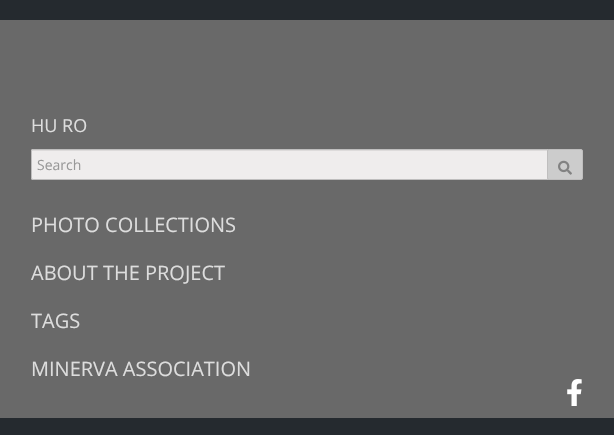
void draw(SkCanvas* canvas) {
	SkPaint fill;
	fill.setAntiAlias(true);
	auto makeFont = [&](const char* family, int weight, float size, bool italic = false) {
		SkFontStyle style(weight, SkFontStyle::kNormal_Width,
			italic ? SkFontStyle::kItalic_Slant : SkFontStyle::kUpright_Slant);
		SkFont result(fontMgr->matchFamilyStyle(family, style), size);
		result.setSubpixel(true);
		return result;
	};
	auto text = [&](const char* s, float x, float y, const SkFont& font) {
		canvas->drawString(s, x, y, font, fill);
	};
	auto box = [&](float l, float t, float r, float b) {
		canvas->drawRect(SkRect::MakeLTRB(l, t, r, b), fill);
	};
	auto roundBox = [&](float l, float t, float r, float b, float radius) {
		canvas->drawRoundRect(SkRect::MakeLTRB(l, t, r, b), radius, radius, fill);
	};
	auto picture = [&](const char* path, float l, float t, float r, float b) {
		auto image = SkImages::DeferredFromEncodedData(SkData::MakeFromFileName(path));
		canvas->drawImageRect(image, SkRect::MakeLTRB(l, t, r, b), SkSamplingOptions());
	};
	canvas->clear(0xFF252A2F);
	fill.setColor(0xFF696969);
	box(0, 20, 614, 418);
	fill.setColor(0xFFEFEDED);
	roundBox(31, 149, 549, 180, 2);
	fill.setColor(0xFFDDDBDB);
	canvas->drawPath(SkPathBuilder(SkPathFillType::kEvenOdd).moveTo(33, 150).lineTo(32, 151).lineTo(547, 151).lineTo(548, 153).cubicTo(548, 152, 548, 150, 547, 150).close().moveTo(548, 177).lineTo(548, 179).close().detach(), fill);
	fill.setStyle(SkPaint::kStroke_Style);
	fill.setStrokeWidth(1);
	fill.setColor(0xFFBFBEBE);
	canvas->drawRoundRect(SkRect::MakeLTRB(31.5f, 149.5f, 548.5f, 179.5f), 1.5f, 1.5f, fill);
	fill.setStyle(SkPaint::kFill_Style);
	fill.setColor(0xFFCCCCCC);
	canvas->drawRoundRect(SkRect::MakeLTRB(547.5f, 149.5f, 582.5f, 179.5f), 1.5f, 1.5f, fill);
	fill.setStyle(SkPaint::kStroke_Style);
	fill.setColor(0xFFBFBEBE);
	canvas->drawRoundRect(SkRect::MakeLTRB(547.5f, 149.5f, 582.5f, 179.5f), 1.5f, 1.5f, fill);
	picture("image0.png", 558, 160, 572, 175);
	picture("image1.png", 567, 379, 582, 406);
	auto font1 = makeFont("Open Sans", 400, 18);
	fill.setStyle(SkPaint::kFill_Style);
	fill.setColor(0xFFDDDDDD);
	text("HU RO", 31, 132, font1);
	auto font2 = makeFont("Open Sans", 400, 14);
	fill.setColor(0xFF999999);
	text("Search", 37, 170, font2);
	auto font3 = makeFont("Open Sans", 400, 20);
	fill.setColor(0xFFDDDDDD);
	text("PHOTO COLLECTIONS", 31, 232, font3);
	text("ABOUT THE PROJECT", 31, 280, font3);
	text("TAGS", 31, 328, font3);
	text("MINERVA ASSOCIATION", 31, 376, font3);
}
